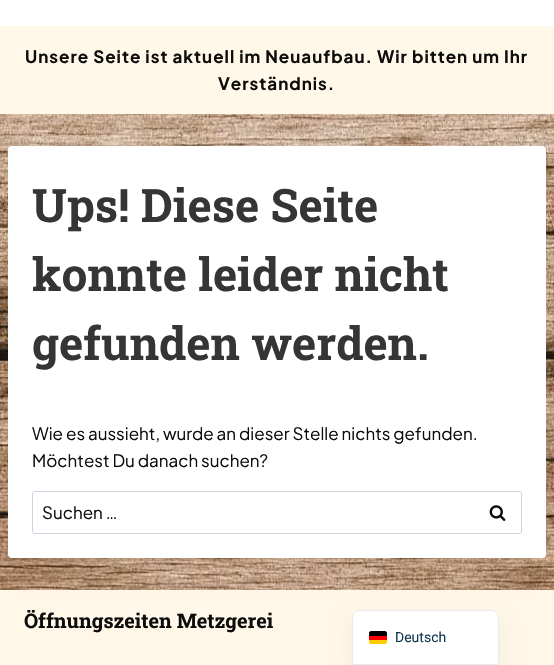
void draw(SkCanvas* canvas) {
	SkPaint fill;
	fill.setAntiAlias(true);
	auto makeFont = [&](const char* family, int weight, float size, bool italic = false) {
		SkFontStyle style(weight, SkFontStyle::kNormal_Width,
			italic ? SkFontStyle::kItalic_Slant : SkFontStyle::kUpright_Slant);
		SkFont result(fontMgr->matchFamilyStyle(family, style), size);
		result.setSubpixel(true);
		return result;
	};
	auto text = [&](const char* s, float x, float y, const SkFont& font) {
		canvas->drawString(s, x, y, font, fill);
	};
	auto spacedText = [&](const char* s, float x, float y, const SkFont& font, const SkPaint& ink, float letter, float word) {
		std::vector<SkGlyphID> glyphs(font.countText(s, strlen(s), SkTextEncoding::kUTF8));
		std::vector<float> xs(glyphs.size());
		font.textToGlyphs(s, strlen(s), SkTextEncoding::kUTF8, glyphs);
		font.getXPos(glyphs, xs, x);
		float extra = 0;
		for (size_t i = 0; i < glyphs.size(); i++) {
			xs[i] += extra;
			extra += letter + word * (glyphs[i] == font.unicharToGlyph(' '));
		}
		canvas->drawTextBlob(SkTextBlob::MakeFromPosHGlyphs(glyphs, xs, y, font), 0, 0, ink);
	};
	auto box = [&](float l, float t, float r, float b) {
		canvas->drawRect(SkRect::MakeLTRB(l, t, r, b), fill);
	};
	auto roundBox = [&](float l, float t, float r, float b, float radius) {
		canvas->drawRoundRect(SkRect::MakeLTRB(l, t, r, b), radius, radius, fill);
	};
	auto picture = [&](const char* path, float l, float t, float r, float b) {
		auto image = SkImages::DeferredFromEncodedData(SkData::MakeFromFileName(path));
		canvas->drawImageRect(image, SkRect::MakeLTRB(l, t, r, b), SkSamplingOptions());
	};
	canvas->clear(0xFFFFFFFF);
	picture("image0.png", 0, 114, 554, 590);
	fill.setColor(0xFFFFF7E7);
	box(0, 26, 554, 114);
	box(0, 590, 554, 665);
	fill.setColor(0x0D000000);
	fill.setMaskFilter(SkMaskFilter::MakeBlur(kNormal_SkBlurStyle, 12.5f));
	canvas->drawRect(SkRect::MakeLTRB(18, 171, 536, 563), fill);
	fill.setMaskFilter(nullptr);
	fill.setColor(0xFFFFFFFF);
	roundBox(8, 146, 546, 558, 4);
	fill.setStyle(SkPaint::kStroke_Style);
	fill.setStrokeWidth(1);
	fill.setColor(0xFFCBD5E0);
	canvas->drawRoundRect(SkRect::MakeLTRB(32.5f, 491.5f, 521.5f, 533.5f), 2.5f, 2.5f, fill);
	picture("image1.png", 489, 505, 506, 521);
	fill.setStyle(SkPaint::kFill_Style);
	fill.setColor(0x0D000000);
	fill.setMaskFilter(SkMaskFilter::MakeBlur(kNormal_SkBlurStyle, 10));
	canvas->drawRoundRect(SkRect::MakeLTRB(352, 620, 499, 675), 8, 8, fill);
	fill.setMaskFilter(nullptr);
	fill.setColor(0xFFFFFFFF);
	canvas->drawPath(SkPathBuilder().moveTo(360, 610).lineTo(491, 610).cubicTo(495.5f, 610, 499, 613.5f, 499, 618).lineTo(499, 665).lineTo(352, 665).lineTo(352, 618).cubicTo(352, 613.5f, 355.5f, 610, 360, 610).close().detach(), fill);
	fill.setStyle(SkPaint::kStroke_Style);
	fill.setColor(0x1A143852);
	canvas->drawPath(SkPathBuilder().moveTo(360, 610.5f).lineTo(491, 610.5f).cubicTo(495, 610.5f, 498.5f, 614, 498.5f, 618).lineTo(498.5f, 664.5f).lineTo(352.5f, 664.5f).lineTo(352.5f, 618).cubicTo(352.5f, 614, 356, 610.5f, 360, 610.5f).close().detach(), fill);
	fill.setStyle(SkPaint::kFill_Style);
	fill.setColor(0xFFFFCC00);
	canvas->drawPath(SkPathBuilder().moveTo(369, 640).lineTo(387, 640).lineTo(387, 642).cubicTo(387, 643, 386, 644, 385, 644).lineTo(371, 644).cubicTo(370, 644, 369, 643, 369, 642).close().detach(), fill);
	fill.setColor(0xFF000001);
	canvas->drawPath(SkPathBuilder().moveTo(371, 631).lineTo(385, 631).cubicTo(386, 631, 387, 632, 387, 633).lineTo(387, 636).lineTo(369, 636).lineTo(369, 633).cubicTo(369, 632, 370, 631, 371, 631).close().detach(), fill);
	fill.setColor(0xFFFF0000);
	box(369, 636, 387, 640);
	auto font1 = makeFont("Plus Jakarta Sans", 700, 17);
	fill.setColor(0xFF0C0C0C);
	spacedText("Unsere Seite ist aktuell im Neuaufbau. Wir bitten um Ihr", 25, 63, font1, fill, 1, 0);
	spacedText("Verständnis.", 218, 90, font1, fill, 1, 0);
	auto font2 = makeFont("Roboto Slab", 700, 46);
	fill.setColor(0xFF363535);
	text("Ups! Diese Seite", 32, 222, font2);
	text("konnte leider nicht", 32, 291, font2);
	text("gefunden werden.", 32, 360, font2);
	auto font3 = makeFont("Plus Jakarta Sans", 400, 17);
	fill.setColor(0xFF0C0C0C);
	text("Wie es aussieht, wurde an dieser Stelle nichts gefunden.", 32, 440, font3);
	text("Möchtest Du danach suchen?", 32, 467, font3);
	text("Suchen …", 42, 519, font3);
	auto font4 = makeFont("Roboto Slab", 700, 20);
	text("Öffnungszeiten Metzgerei", 24, 628, font4);
	auto font5 = makeFont("Roboto", 400, 14);
	fill.setColor(0xFF143852);
	text("Deutsch", 395, 642, font5);
}
